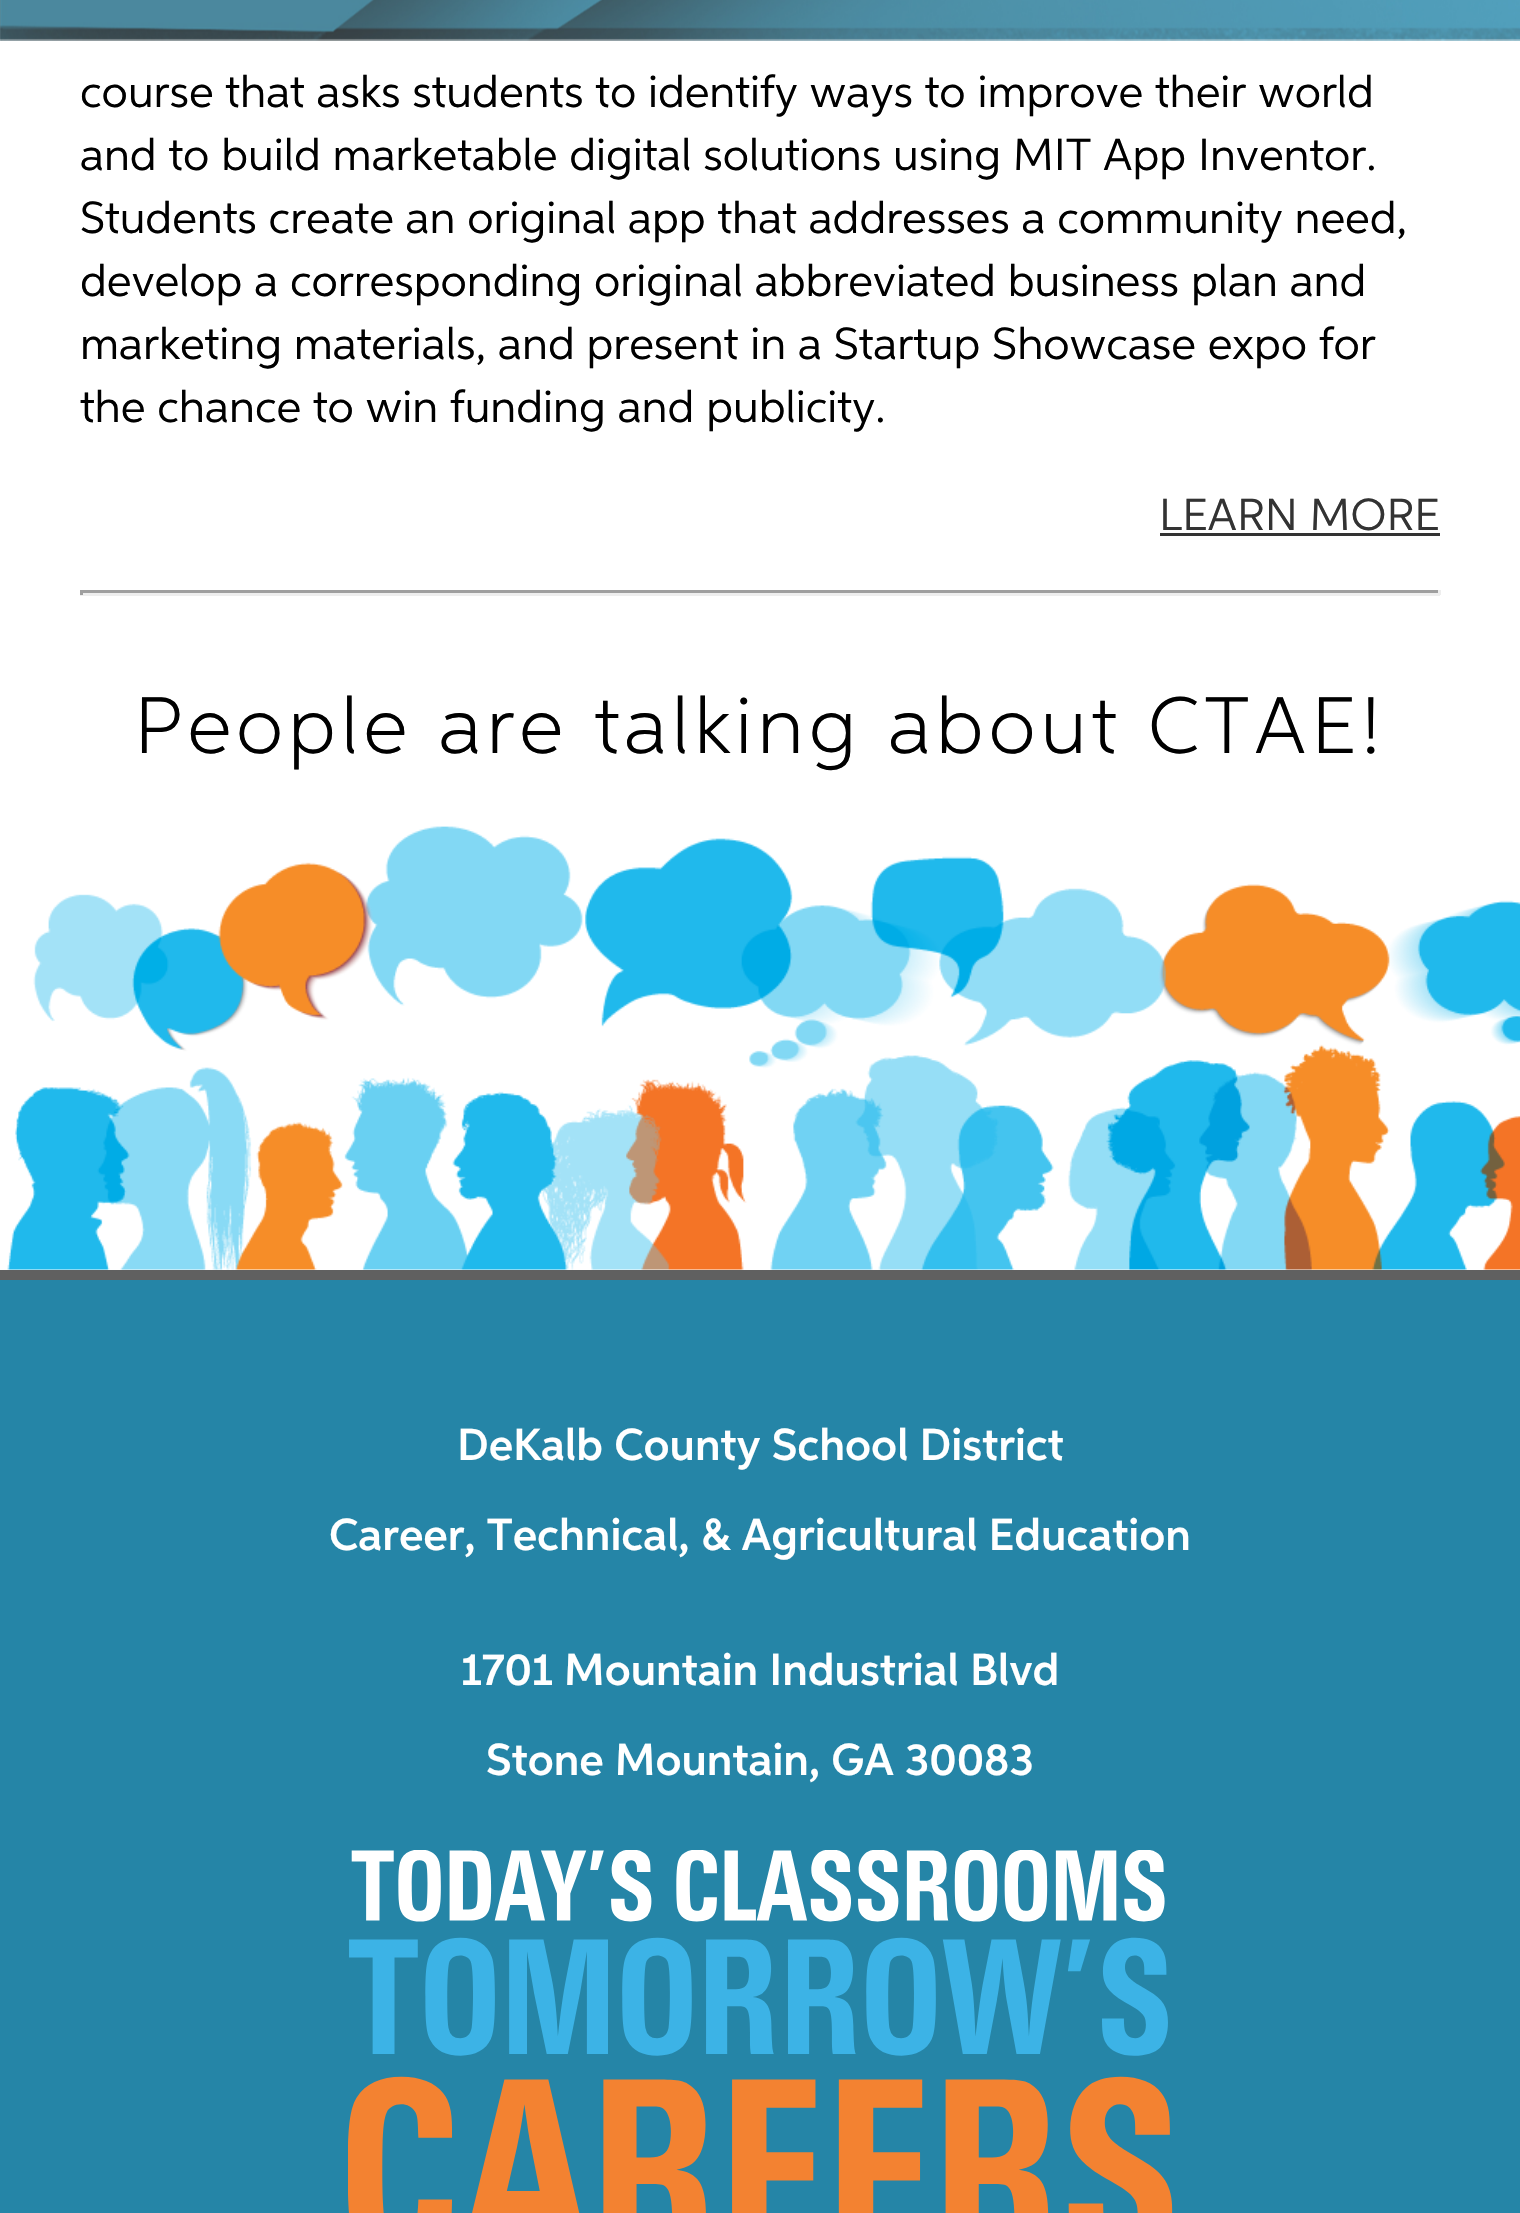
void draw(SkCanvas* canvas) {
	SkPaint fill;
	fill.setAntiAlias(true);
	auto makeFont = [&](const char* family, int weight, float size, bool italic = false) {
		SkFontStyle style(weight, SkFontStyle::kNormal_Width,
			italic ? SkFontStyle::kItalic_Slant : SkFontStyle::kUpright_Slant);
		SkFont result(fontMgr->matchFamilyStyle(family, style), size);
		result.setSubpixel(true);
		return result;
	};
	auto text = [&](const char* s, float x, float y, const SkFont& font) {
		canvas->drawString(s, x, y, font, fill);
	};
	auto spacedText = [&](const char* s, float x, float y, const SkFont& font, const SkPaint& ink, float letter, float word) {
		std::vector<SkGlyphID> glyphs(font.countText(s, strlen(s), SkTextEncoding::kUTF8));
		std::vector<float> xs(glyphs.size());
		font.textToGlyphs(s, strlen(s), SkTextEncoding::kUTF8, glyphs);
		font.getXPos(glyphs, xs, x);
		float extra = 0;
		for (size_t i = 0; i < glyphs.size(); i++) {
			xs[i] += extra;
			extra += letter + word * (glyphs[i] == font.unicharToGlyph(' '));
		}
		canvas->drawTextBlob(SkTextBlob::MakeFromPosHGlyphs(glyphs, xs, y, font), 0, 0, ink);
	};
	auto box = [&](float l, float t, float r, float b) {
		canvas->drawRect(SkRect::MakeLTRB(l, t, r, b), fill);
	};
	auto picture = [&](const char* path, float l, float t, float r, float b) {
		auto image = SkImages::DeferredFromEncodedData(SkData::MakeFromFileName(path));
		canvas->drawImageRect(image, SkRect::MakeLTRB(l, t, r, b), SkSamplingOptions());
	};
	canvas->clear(0xFFFFFFFF);
	picture("image0.png", 0, 0, 1520, 41);
	fill.setColor(0x33FFFFFF);
	box(0, 0, 1520, 40);
	fill.setColor(0xFF333333);
	box(1160, 533, 1440, 536);
	fill.setColor(0xFF9F9F9F);
	box(80, 590, 1440, 593);
	fill.setColor(0xFFEEEEEE);
	box(1438, 590, 1441, 595);
	box(80, 593, 1440, 596);
	fill.setColor(0xFF9F9F9F);
	box(80, 590, 83, 595);
	picture("image1.png", 7, 826, 1520, 1270);
	fill.setColor(0xFF2585A7);
	box(0, 1280, 1520, 2213);
	fill.setColor(0xFF606060);
	box(0, 1270, 1520, 1280);
	picture("image2.png", 348, 1850, 1173, 2213);
	auto font1 = makeFont("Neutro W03", 400, 45);
	fill.setColor(0xFF000000);
	text("course that asks students to identify ways to improve their world", 80, 107, font1);
	text("and to build marketable digital solutions using MIT App Inventor.", 80, 170, font1);
	text("Students create an original app that addresses a community need,", 80, 233, font1);
	text("develop a corresponding original abbreviated business plan and", 80, 296, font1);
	text("marketing materials, and present in a Startup Showcase expo for", 80, 359, font1);
	text("the chance to win funding and publicity.", 80, 422, font1);
	fill.setColor(0xFF333333);
	text("LEARN MORE", 1159, 530, font1);
	auto font2 = makeFont("Neutro W03", 300, 80);
	fill.setColor(0xFF000000);
	spacedText("People are talking about CTAE!", 134, 753, font2, fill, 5, 0);
	auto font3 = makeFont("Neutro W03", 600, 45);
	fill.setColor(0xFFFFFFFF);
	text("DeKalb County School District", 457, 1460, font3);
	text("Career, Technical, & Agricultural Education", 329, 1550, font3);
	text("1701 Mountain Industrial Blvd", 461, 1685, font3);
	text("Stone Mountain, GA 30083", 486, 1775, font3);
}
